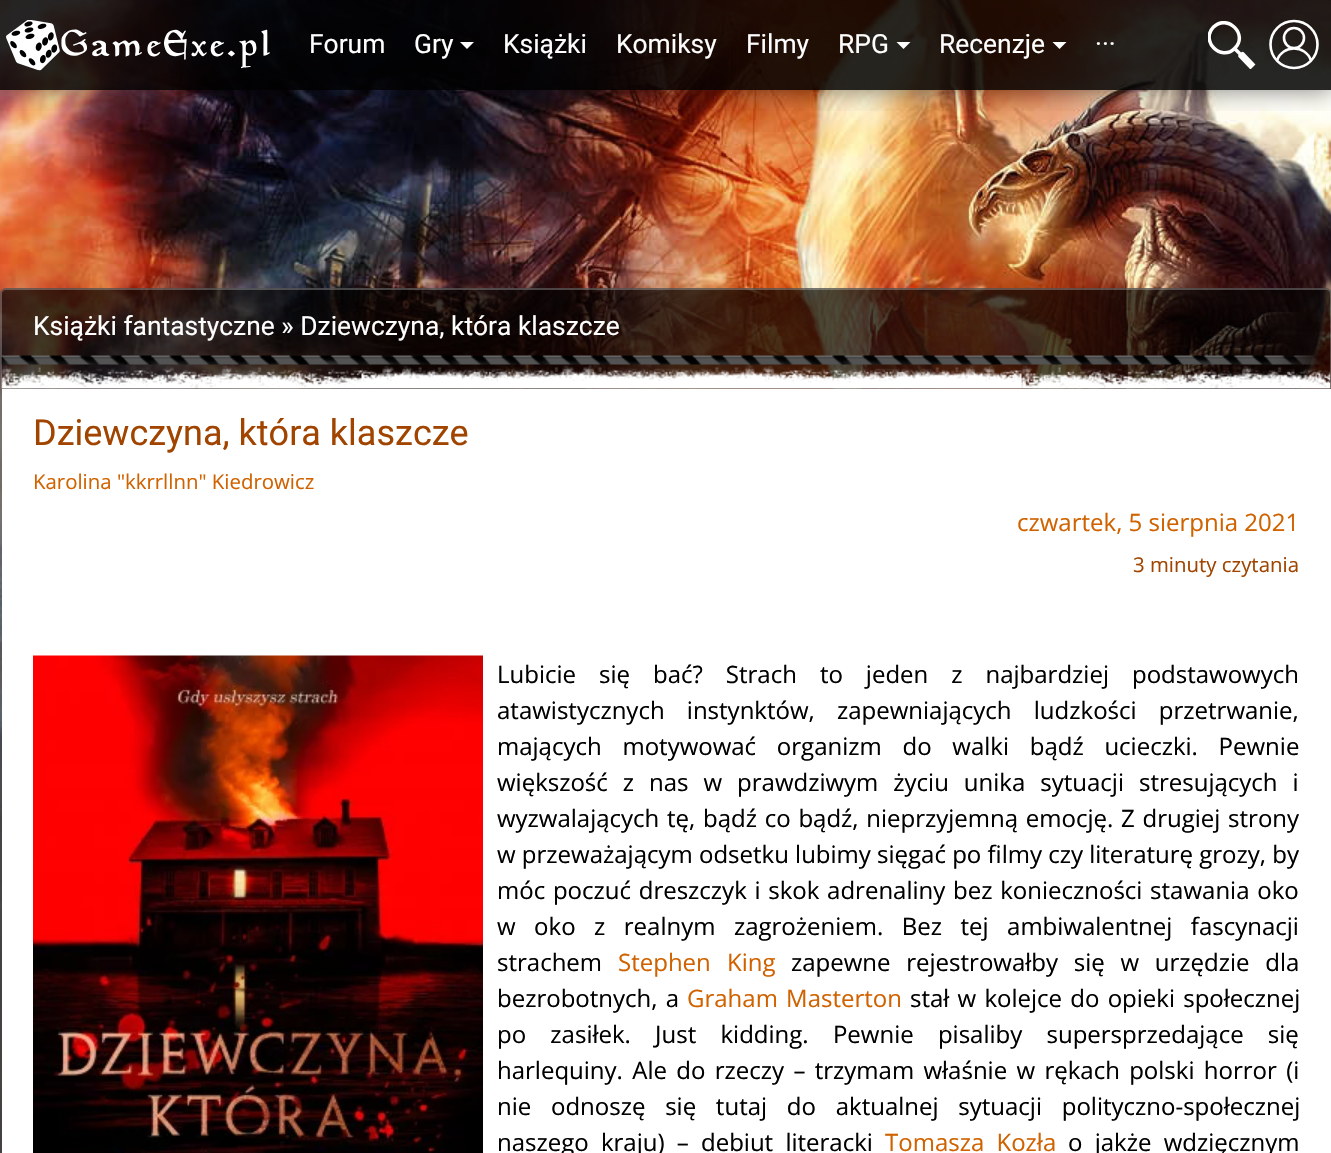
void draw(SkCanvas* canvas) {
	SkPaint fill;
	fill.setAntiAlias(true);
	auto makeFont = [&](const char* family, int weight, float size, bool italic = false) {
		SkFontStyle style(weight, SkFontStyle::kNormal_Width,
			italic ? SkFontStyle::kItalic_Slant : SkFontStyle::kUpright_Slant);
		SkFont result(fontMgr->matchFamilyStyle(family, style), size);
		result.setSubpixel(true);
		return result;
	};
	auto text = [&](const char* s, float x, float y, const SkFont& font) {
		canvas->drawString(s, x, y, font, fill);
	};
	auto spacedText = [&](const char* s, float x, float y, const SkFont& font, const SkPaint& ink, float letter, float word) {
		std::vector<SkGlyphID> glyphs(font.countText(s, strlen(s), SkTextEncoding::kUTF8));
		std::vector<float> xs(glyphs.size());
		font.textToGlyphs(s, strlen(s), SkTextEncoding::kUTF8, glyphs);
		font.getXPos(glyphs, xs, x);
		float extra = 0;
		for (size_t i = 0; i < glyphs.size(); i++) {
			xs[i] += extra;
			extra += letter + word * (glyphs[i] == font.unicharToGlyph(' '));
		}
		canvas->drawTextBlob(SkTextBlob::MakeFromPosHGlyphs(glyphs, xs, y, font), 0, 0, ink);
	};
	auto box = [&](float l, float t, float r, float b) {
		canvas->drawRect(SkRect::MakeLTRB(l, t, r, b), fill);
	};
	auto roundBox = [&](float l, float t, float r, float b, float radius) {
		canvas->drawRoundRect(SkRect::MakeLTRB(l, t, r, b), radius, radius, fill);
	};
	auto picture = [&](const char* path, float l, float t, float r, float b) {
		auto image = SkImages::DeferredFromEncodedData(SkData::MakeFromFileName(path));
		canvas->drawImageRect(image, SkRect::MakeLTRB(l, t, r, b), SkSamplingOptions());
	};
	canvas->clear(0xFFFFFFFF);
	picture("image0.png", 0, 0, 1331, 1153);
	canvas->save();
	canvas->clipRect(SkRect::MakeLTRB(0, 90, 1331, 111));
	fill.setColor(0x80000000);
	fill.setMaskFilter(SkMaskFilter::MakeBlur(kNormal_SkBlurStyle, 12));
	canvas->drawRect(SkRect::MakeLTRB(0, 0, 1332, 90), fill);
	fill.setMaskFilter(nullptr);
	canvas->restore();
	fill.setColor(0xD9000000);
	box(0, 0, 1331, 90);
	picture("image1.png", 6, 20, 270, 71);
	fill.setColor(0xFFFFFFFF);
	canvas->drawPath(SkPathBuilder().moveTo(460, 42).lineTo(467, 49).lineTo(474, 42).close().detach(), fill);
	canvas->drawPath(SkPathBuilder().moveTo(896.5f, 42).lineTo(903.5f, 49).lineTo(910.5f, 42).close().detach(), fill);
	canvas->drawPath(SkPathBuilder().moveTo(1052.5f, 42).lineTo(1059.5f, 49).lineTo(1066.5f, 42).close().detach(), fill);
	canvas->save();
	canvas->clipRect(SkRect::MakeLTRB(1208, 21, 1256, 69));
	fill.setStyle(SkPaint::kStroke_Style);
	fill.setStrokeWidth(3.5f);
	fill.setStrokeCap(SkPaint::kRound_Cap);
	canvas->drawPath(SkPathBuilder().moveTo(1235, 48).cubicTo(1248.5f, 34.5f, 1227.5f, 13.5f, 1213.5f, 27).cubicTo(1200, 41, 1221, 62, 1234.5f, 48.5f).lineTo(1251.5f, 65).moveTo(1242.5f, 53.5f).lineTo(1253, 64.5f).lineTo(1250.5f, 67).lineTo(1240, 56).detach(), fill);
	canvas->restore();
	fill.setStrokeWidth(2.6f);
	fill.setStrokeCap(SkPaint::kButt_Cap);
	canvas->drawCircle(1294, 44.5f, 23.5f, fill);
	canvas->drawCircle(1294, 38, 10, fill);
	canvas->drawPath(SkPathBuilder().moveTo(1277, 60.5f).cubicTo(1282.5f, 44.5f, 1305.5f, 44.5f, 1311, 60.5f).detach(), fill);
	fill.setStyle(SkPaint::kFill_Style);
	fill.setColor(0xB3000000);
	roundBox(0, 288, 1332, 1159, 6);
	fill.setStyle(SkPaint::kStroke_Style);
	fill.setStrokeWidth(2);
	fill.setColor(0x40FFFFFF);
	canvas->drawRoundRect(SkRect::MakeLTRB(1, 289, 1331, 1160), 5, 5, fill);
	picture("image2.png", 1, 355, 1326, 365);
	fill.setStyle(SkPaint::kFill_Style);
	fill.setColor(0xFFFFFFFF);
	box(2, 389, 1331, 1153);
	picture("image3.png", 1, 365, 1331, 389);
	picture("image4.png", 33, 655, 483, 1153);
	auto font1 = makeFont("Roboto", 400, 26.4f);
	text("Forum", 309, 53, font1);
	text("Gry", 414, 53, font1);
	text("Książki", 503, 53, font1);
	text("Komiksy", 616, 53, font1);
	text("Filmy", 746, 53, font1);
	text("RPG", 838, 53, font1);
	text("Recenzje", 939, 53, font1);
	text("···", 1095, 53, font1);
	text("Książki fantastyczne » Dziewczyna, która klaszcze", 33, 335, font1);
	auto font2 = makeFont("Roboto", 400, 36);
	fill.setColor(0xFFA04400);
	text("Dziewczyna, która klaszcze", 33, 445, font2);
	auto font3 = makeFont("Open Sans", 400, 20.4f);
	fill.setColor(0xFFD06200);
	text("Karolina \"kkrrllnn\" Kiedrowicz", 33, 489, font3);
	auto font4 = makeFont("Open Sans", 400, 24);
	text("czwartek, 5 sierpnia 2021", 1017, 531, font4);
	fill.setColor(0xFFA04400);
	text("3 minuty czytania", 1133, 572, font3);
	fill.setColor(0xFF000000);
	spacedText("Lubicie się bać? Strach to jeden z najbardziej podstawowych", 497, 683, font4, fill, 0, 16.75f);
	spacedText("atawistycznych instynktów, zapewniających ludzkości przetrwanie,", 497, 719, font4, fill, 0, 16);
	spacedText("mających motywować organizm do walki bądź ucieczki. Pewnie", 497, 755, font4, fill, 0, 14.5f);
	spacedText("większość z nas w prawdziwym życiu unika sytuacji stresujących i", 497, 791, font4, fill, 0, 8.75f);
	spacedText("wyzwalających tę, bądź co bądź, nieprzyjemną emocję. Z drugiej strony", 497, 827, font4, fill, 0, 1.5f);
	text("w przeważającym odsetku lubimy sięgać po filmy czy literaturę grozy, by", 497, 863, font4);
	spacedText("móc poczuć dreszczyk i skok adrenaliny bez konieczności stawania oko", 497, 899, font4, fill, 0, 1.5f);
	spacedText("w oko z realnym zagrożeniem. Bez tej ambiwalentnej fascynacji", 497, 935, font4, fill, 0, 12.25f);
	text("strachem", 497, 971, font4);
	fill.setColor(0xFFD06200);
	spacedText("Stephen King", 618, 971, font4, fill, 0, 10);
	fill.setColor(0xFF000000);
	spacedText("zapewne rejestrowałby się w urzędzie dla", 791, 971, font4, fill, 0, 9.5f);
	spacedText("bezrobotnych, a", 497, 1007, font4, fill, 0, 2);
	fill.setColor(0xFFD06200);
	spacedText("Graham Masterton", 687, 1007, font4, fill, 0, 2);
	fill.setColor(0xFF000000);
	spacedText("stał w kolejce do opieki społecznej", 910, 1007, font4, fill, 0, 2);
	spacedText("po zasiłek. Just kidding. Pewnie pisaliby supersprzedające się", 497, 1043, font4, fill, 0, 18);
	spacedText("harlequiny. Ale do rzeczy – trzymam właśnie w rękach polski horror (i", 497, 1079, font4, fill, 0, 3.1f);
	spacedText("nie odnoszę się tutaj do aktualnej sytuacji polityczno-społecznej", 497, 1115, font4, fill, 0, 13.5f);
	spacedText("naszego kraju) – debiut literacki", 497, 1151, font4, fill, 0, 6);
	fill.setColor(0xFFD06200);
	spacedText("Tomasza Kozła", 885, 1151, font4, fill, 0, 6);
	fill.setColor(0xFF000000);
	spacedText("o jakże wdzięcznym", 1068, 1151, font4, fill, 0, 6);
}
